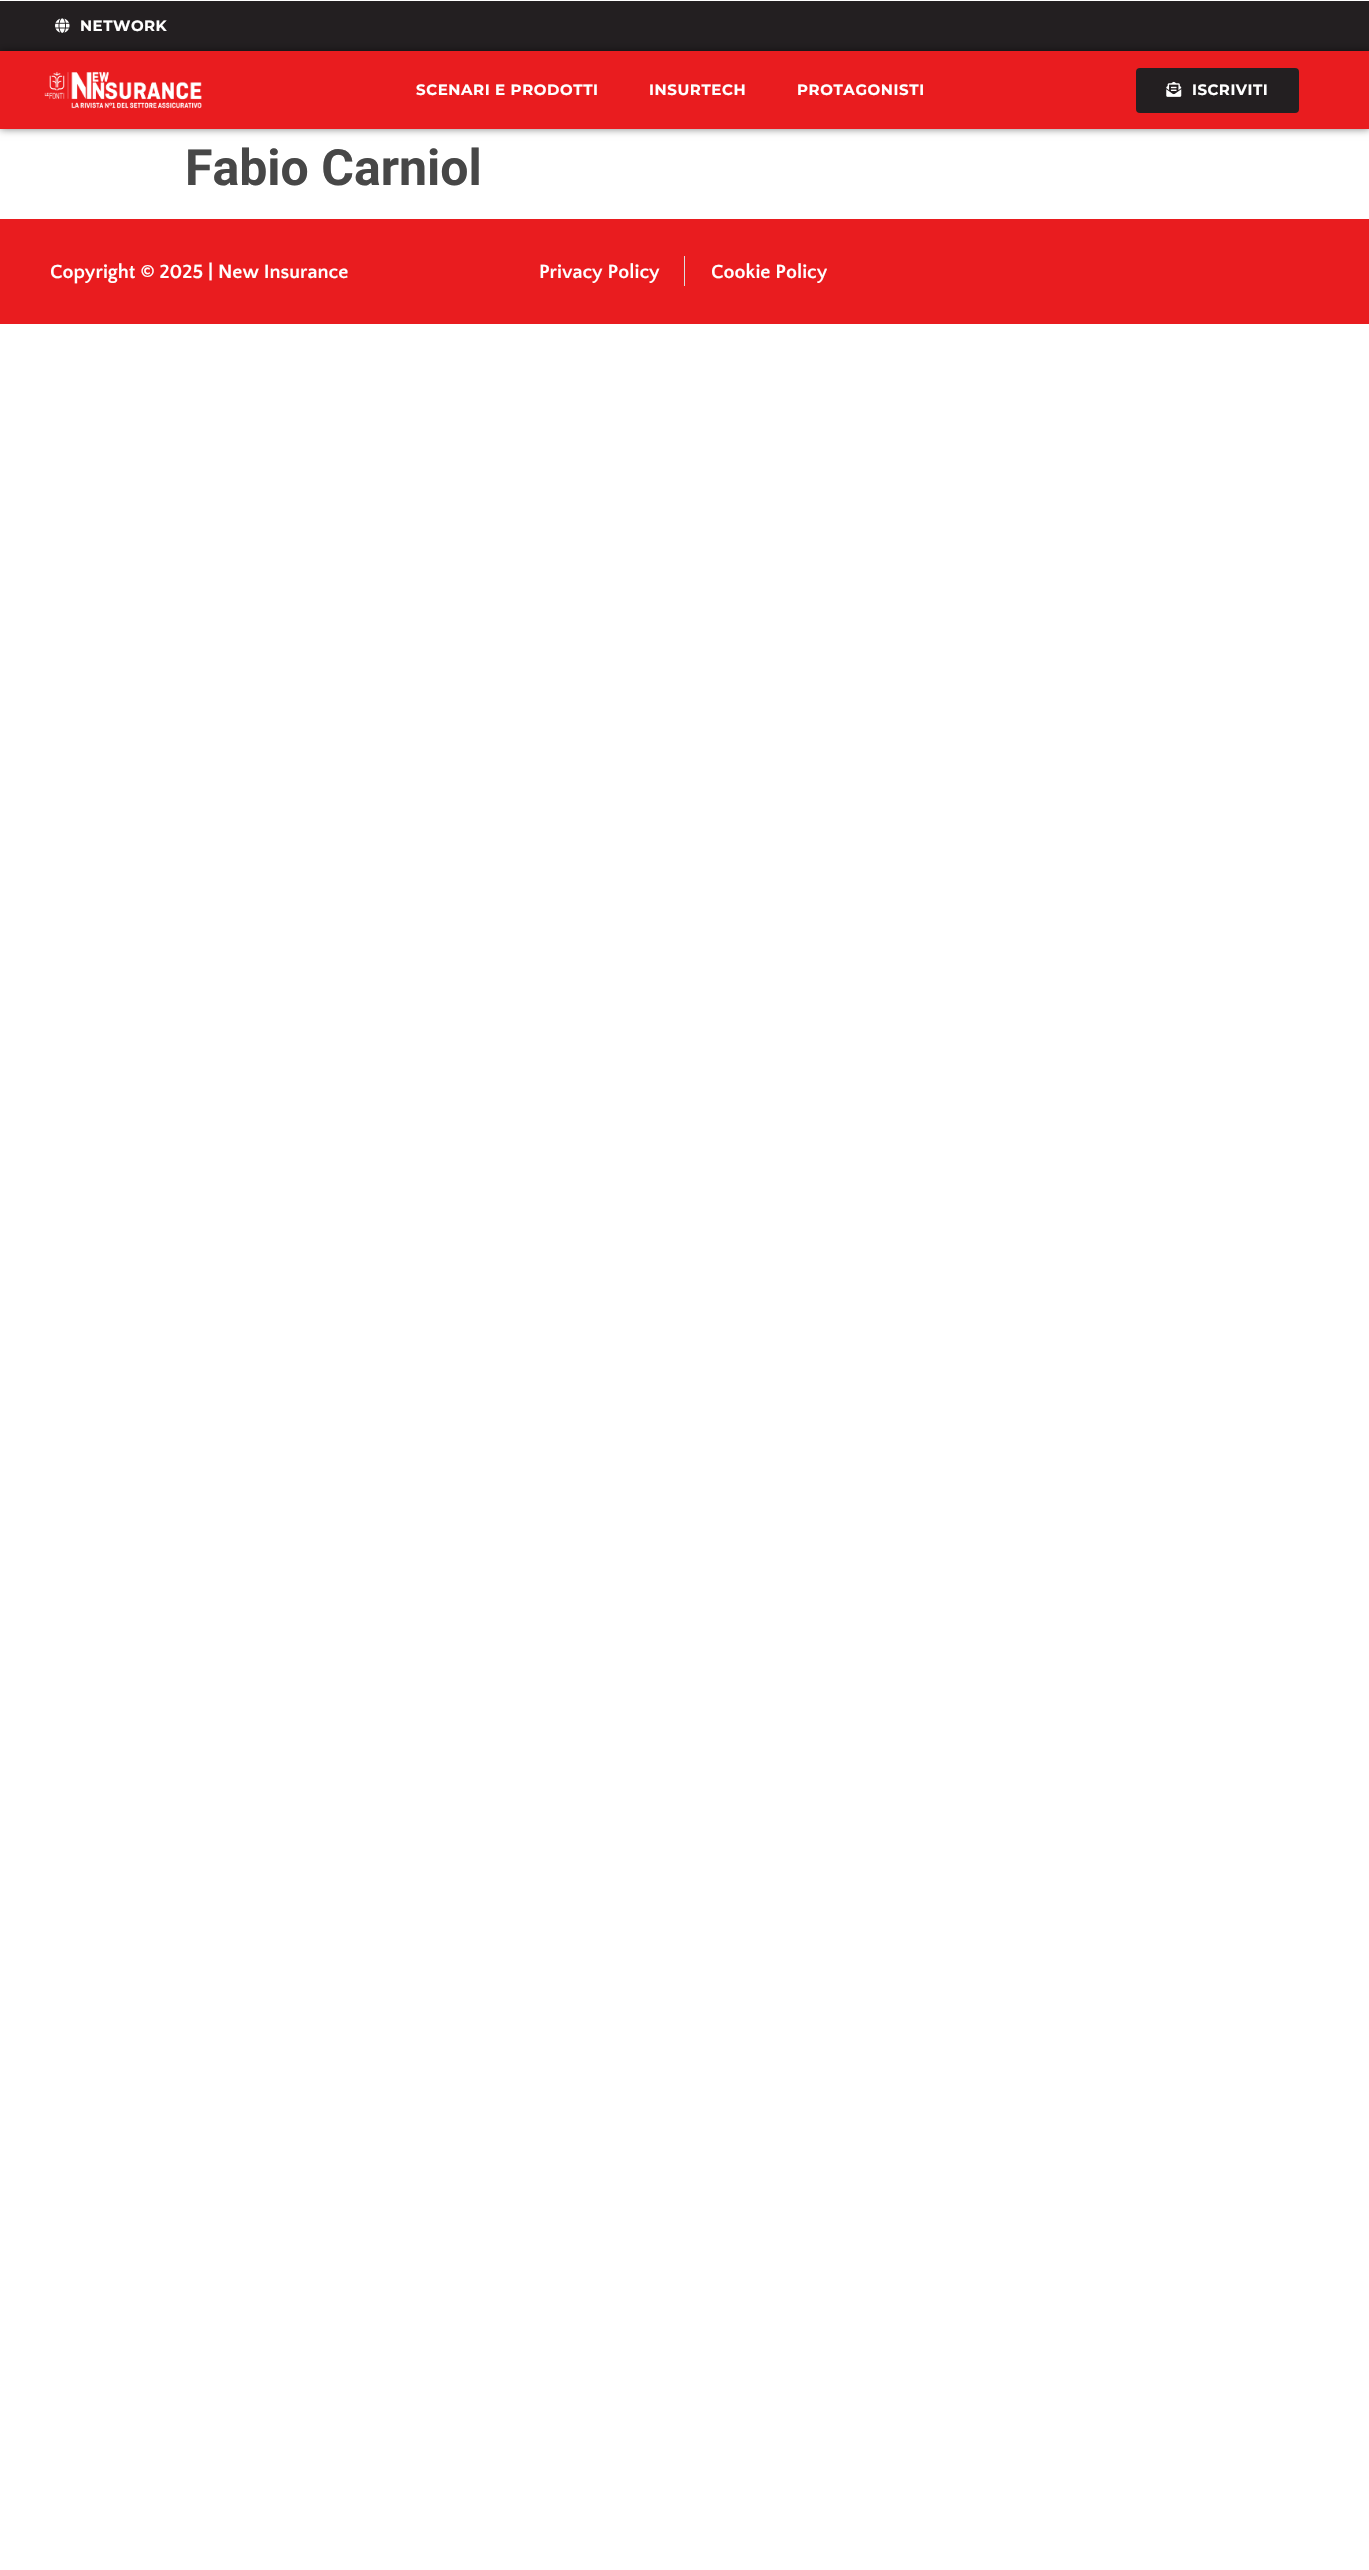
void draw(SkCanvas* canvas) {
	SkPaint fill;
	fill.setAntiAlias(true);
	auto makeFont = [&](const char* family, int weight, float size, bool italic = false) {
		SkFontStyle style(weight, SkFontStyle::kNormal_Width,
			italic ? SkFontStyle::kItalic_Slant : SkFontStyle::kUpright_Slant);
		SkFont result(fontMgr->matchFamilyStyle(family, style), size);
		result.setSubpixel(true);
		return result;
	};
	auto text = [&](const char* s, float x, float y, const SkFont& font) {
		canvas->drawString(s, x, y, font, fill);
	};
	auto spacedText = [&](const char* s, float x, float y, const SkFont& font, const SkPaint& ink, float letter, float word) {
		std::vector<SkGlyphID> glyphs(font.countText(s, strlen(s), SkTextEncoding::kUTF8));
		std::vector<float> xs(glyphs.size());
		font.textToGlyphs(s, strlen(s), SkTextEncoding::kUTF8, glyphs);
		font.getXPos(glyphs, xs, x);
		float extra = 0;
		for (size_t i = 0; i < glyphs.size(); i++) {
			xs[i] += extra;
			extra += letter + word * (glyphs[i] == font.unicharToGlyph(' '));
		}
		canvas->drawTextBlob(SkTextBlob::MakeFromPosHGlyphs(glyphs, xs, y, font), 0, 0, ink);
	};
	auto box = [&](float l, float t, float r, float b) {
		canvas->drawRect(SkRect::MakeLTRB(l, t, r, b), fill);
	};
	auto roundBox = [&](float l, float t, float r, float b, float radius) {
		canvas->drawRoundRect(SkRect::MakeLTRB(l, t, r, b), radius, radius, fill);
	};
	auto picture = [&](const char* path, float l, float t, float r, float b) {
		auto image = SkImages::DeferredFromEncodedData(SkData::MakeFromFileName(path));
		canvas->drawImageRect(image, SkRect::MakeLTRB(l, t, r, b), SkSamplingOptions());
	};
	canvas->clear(0xFFFFFFFF);
	fill.setColor(0xFF231F21);
	box(0, 1, 1369, 51);
	picture("image0.png", 55, 18, 70, 33);
	fill.setColor(0x80000000);
	fill.setMaskFilter(SkMaskFilter::MakeBlur(kNormal_SkBlurStyle, 4));
	canvas->drawRect(SkRect::MakeLTRB(0, 51, 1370, 129), fill);
	fill.setMaskFilter(nullptr);
	fill.setColor(0xFFE91C1F);
	box(0, 51, 1369, 129);
	picture("image1.png", 44, 71, 202, 109);
	fill.setColor(0xFF231F21);
	roundBox(1136, 68, 1299, 113, 4);
	picture("image2.png", 1166, 81, 1182, 97);
	fill.setColor(0xFFE91C1F);
	box(0, 219, 1369, 324);
	fill.setColor(0xFFDDDDDD);
	box(684, 256, 685, 286);
	auto font1 = makeFont("Montserrat", 700, 15);
	fill.setColor(0xFFFFFFFF);
	spacedText("NETWORK", 80, 31, font1, fill, 0.5f, 0);
	spacedText("SCENARI E PRODOTTI", 416, 95, font1, fill, 0.6f, 0);
	spacedText("INSURTECH", 649, 95, font1, fill, 0.6f, 0);
	spacedText("PROTAGONISTI", 797, 95, font1, fill, 0.6f, 0);
	spacedText("ISCRIVITI", 1192, 95, font1, fill, 0.5f, 0);
	auto font2 = makeFont("Roboto", 700, 50);
	fill.setColor(0xFF474747);
	text("Fabio Carniol", 185, 185, font2);
	auto font3 = makeFont("Quattrocento Sans", 700, 20);
	fill.setColor(0xFFFFFFFF);
	text("Copyright © 2025 | New Insurance", 50, 278, font3);
	text("Privacy Policy", 539, 278, font3);
	text("Cookie Policy", 711, 278, font3);
}
